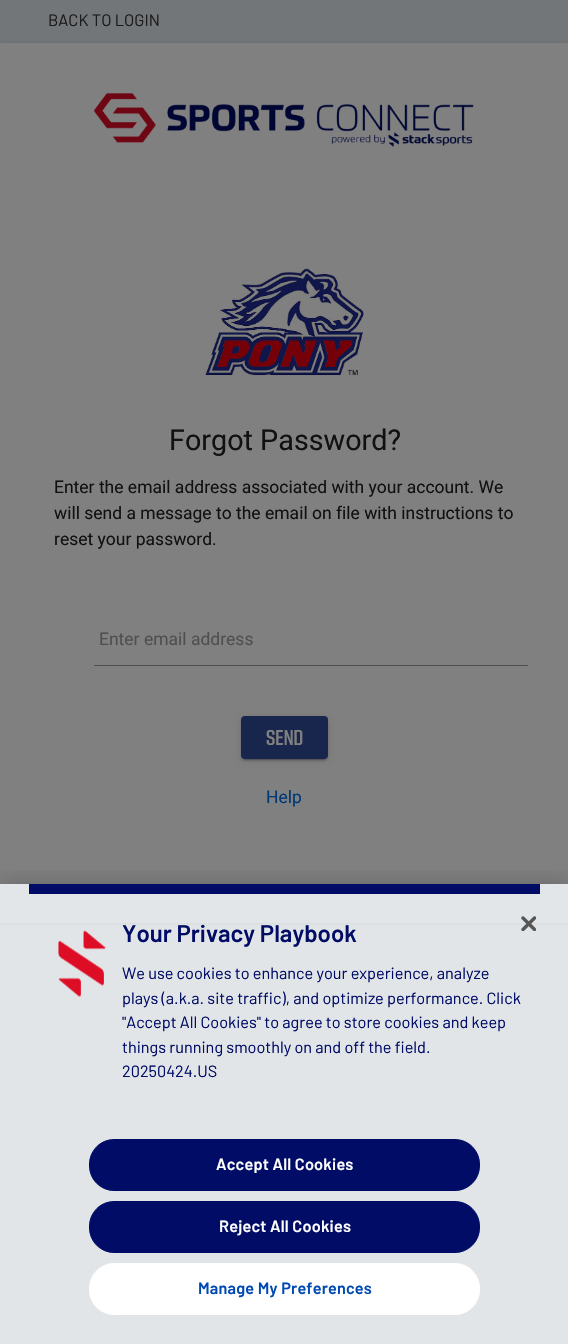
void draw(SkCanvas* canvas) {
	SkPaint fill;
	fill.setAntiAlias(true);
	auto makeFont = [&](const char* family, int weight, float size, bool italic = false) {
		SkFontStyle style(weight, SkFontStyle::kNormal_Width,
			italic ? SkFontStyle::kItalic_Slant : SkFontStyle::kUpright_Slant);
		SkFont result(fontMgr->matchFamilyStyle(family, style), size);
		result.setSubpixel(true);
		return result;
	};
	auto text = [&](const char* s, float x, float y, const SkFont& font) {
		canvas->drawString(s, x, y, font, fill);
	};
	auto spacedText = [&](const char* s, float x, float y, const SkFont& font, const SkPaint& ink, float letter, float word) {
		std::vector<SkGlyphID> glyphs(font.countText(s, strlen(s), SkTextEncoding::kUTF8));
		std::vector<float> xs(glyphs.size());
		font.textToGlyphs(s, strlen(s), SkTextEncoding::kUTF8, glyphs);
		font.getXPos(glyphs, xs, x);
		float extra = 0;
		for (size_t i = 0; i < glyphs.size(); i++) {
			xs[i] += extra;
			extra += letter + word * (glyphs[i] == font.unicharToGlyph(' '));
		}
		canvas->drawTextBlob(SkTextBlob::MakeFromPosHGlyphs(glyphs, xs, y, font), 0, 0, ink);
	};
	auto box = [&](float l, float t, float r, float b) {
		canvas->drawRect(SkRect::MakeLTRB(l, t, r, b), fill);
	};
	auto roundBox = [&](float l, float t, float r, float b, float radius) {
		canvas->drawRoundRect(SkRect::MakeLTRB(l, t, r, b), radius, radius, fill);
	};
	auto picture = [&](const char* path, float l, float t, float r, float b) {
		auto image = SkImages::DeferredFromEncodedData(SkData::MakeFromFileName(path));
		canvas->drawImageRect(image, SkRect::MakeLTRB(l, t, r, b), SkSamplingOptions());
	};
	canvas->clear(0xFF737679);
	fill.setColor(0x33000000);
	fill.setMaskFilter(SkMaskFilter::MakeBlur(kNormal_SkBlurStyle, 0.5f));
	canvas->drawRect(SkRect::MakeLTRB(3, 49, 566, 924), fill);
	fill.setMaskFilter(nullptr);
	fill.setColor(0x1F000000);
	fill.setMaskFilter(SkMaskFilter::MakeBlur(kNormal_SkBlurStyle, 3));
	canvas->drawRect(SkRect::MakeLTRB(0, 44, 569, 924), fill);
	fill.setMaskFilter(nullptr);
	fill.setColor(0x24000000);
	fill.setMaskFilter(SkMaskFilter::MakeBlur(kNormal_SkBlurStyle, 1));
	canvas->drawRect(SkRect::MakeLTRB(0, 45, 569, 925), fill);
	fill.setMaskFilter(nullptr);
	fill.setColor(0xFF808080);
	box(0, 43, 568, 923);
	picture("image0.png", 94, 93, 474, 147);
	picture("image1.png", 205, 268, 364, 377);
	fill.setColor(0xFF4F4F4F);
	box(94, 665, 528, 666);
	fill.setColor(0x33000000);
	fill.setMaskFilter(SkMaskFilter::MakeBlur(kNormal_SkBlurStyle, 0.5f));
	canvas->drawRoundRect(SkRect::MakeLTRB(244, 723, 325, 760), 1, 1, fill);
	fill.setMaskFilter(nullptr);
	fill.setColor(0x1F000000);
	fill.setMaskFilter(SkMaskFilter::MakeBlur(kNormal_SkBlurStyle, 3));
	canvas->drawRoundRect(SkRect::MakeLTRB(241, 718, 328, 760), 4, 4, fill);
	fill.setMaskFilter(nullptr);
	fill.setColor(0x24000000);
	fill.setMaskFilter(SkMaskFilter::MakeBlur(kNormal_SkBlurStyle, 1));
	canvas->drawRoundRect(SkRect::MakeLTRB(241, 719, 328, 761), 4, 4, fill);
	fill.setMaskFilter(nullptr);
	fill.setColor(0xFF18254D);
	roundBox(241, 716, 328, 759, 4);
	canvas->save();
	canvas->clipRect(SkRect::MakeLTRB(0, 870, 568, 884));
	fill.setColor(0x33000000);
	fill.setMaskFilter(SkMaskFilter::MakeBlur(kNormal_SkBlurStyle, 11));
	canvas->drawRect(SkRect::MakeLTRB(0, 884, 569, 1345), fill);
	fill.setMaskFilter(nullptr);
	canvas->restore();
	fill.setColor(0xD9F5F8FA);
	box(0, 884, 568, 1344);
	fill.setColor(0xFF000C66);
	box(29, 884, 540, 894);
	picture("image2.png", 58, 930, 106, 997);
	canvas->drawRoundRect(SkRect::MakeLTRB(89.5f, 1139.5f, 479.5f, 1190.5f), 24.5f, 24.5f, fill);
	fill.setStyle(SkPaint::kStroke_Style);
	fill.setStrokeWidth(1);
	canvas->drawRoundRect(SkRect::MakeLTRB(89.5f, 1139.5f, 479.5f, 1190.5f), 24.5f, 24.5f, fill);
	fill.setStyle(SkPaint::kFill_Style);
	canvas->drawRoundRect(SkRect::MakeLTRB(89.5f, 1201.5f, 479.5f, 1252.5f), 24.5f, 24.5f, fill);
	fill.setStyle(SkPaint::kStroke_Style);
	canvas->drawRoundRect(SkRect::MakeLTRB(89.5f, 1201.5f, 479.5f, 1252.5f), 24.5f, 24.5f, fill);
	fill.setStyle(SkPaint::kFill_Style);
	fill.setColor(0xFFFFFFFF);
	canvas->drawRoundRect(SkRect::MakeLTRB(89.5f, 1263.5f, 479.5f, 1314.5f), 24.5f, 24.5f, fill);
	fill.setStyle(SkPaint::kStroke_Style);
	canvas->drawRoundRect(SkRect::MakeLTRB(89.5f, 1263.5f, 479.5f, 1314.5f), 24.5f, 24.5f, fill);
	picture("image3.png", 521, 916, 536, 931);
	auto font1 = makeFont("Barlow", 400, 16.5f);
	fill.setStyle(SkPaint::kFill_Style);
	fill.setColor(0xFF1A1A1A);
	text("BACK TO LOGIN", 48, 26, font1);
	auto font2 = makeFont("Roboto", 400, 28.75f);
	fill.setColor(0xFF111111);
	text("Forgot Password?", 169, 450, font2);
	auto font3 = makeFont("Roboto", 400, 17.5f);
	text("Enter the email address associated with your account. We", 54, 493, font3);
	text("will send a message to the email on file with instructions to", 54, 519, font3);
	text("reset your password.", 54, 545, font3);
	fill.setColor(0xFF4F4F4F);
	text("Enter email address", 99, 645, font3);
	auto font4 = makeFont("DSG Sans", 700, 20);
	fill.setColor(0xFF808080);
	text("SEND", 266, 745, font4);
	fill.setColor(0xFF003976);
	text("Help", 266, 803, font3);
	auto font5 = makeFont("Barlow", 600, 24);
	fill.setColor(0xFF000C66);
	text("Your Privacy Playbook", 122, 942, font5);
	auto font6 = makeFont("Barlow", 400, 16.25f);
	text("We use cookies to enhance your experience, analyze", 122, 979, font6);
	text("plays (a.k.a. site traffic), and optimize performance. Click", 122, 1004, font6);
	text("\"Accept All Cookies\" to agree to store cookies and keep", 122, 1028, font6);
	text("things running smoothly on and off the field.", 122, 1053, font6);
	text("20250424.US", 122, 1077, font6);
	auto font7 = makeFont("Barlow", 600, 16.25f);
	fill.setColor(0xFFFFFFFF);
	spacedText("Accept All Cookies", 216, 1170, font7, fill, 0.2f, 0);
	spacedText("Reject All Cookies", 219, 1232, font7, fill, 0.2f, 0);
	fill.setColor(0xFF0049B3);
	spacedText("Manage My Preferences", 198, 1294, font7, fill, 0.2f, 0);
}
